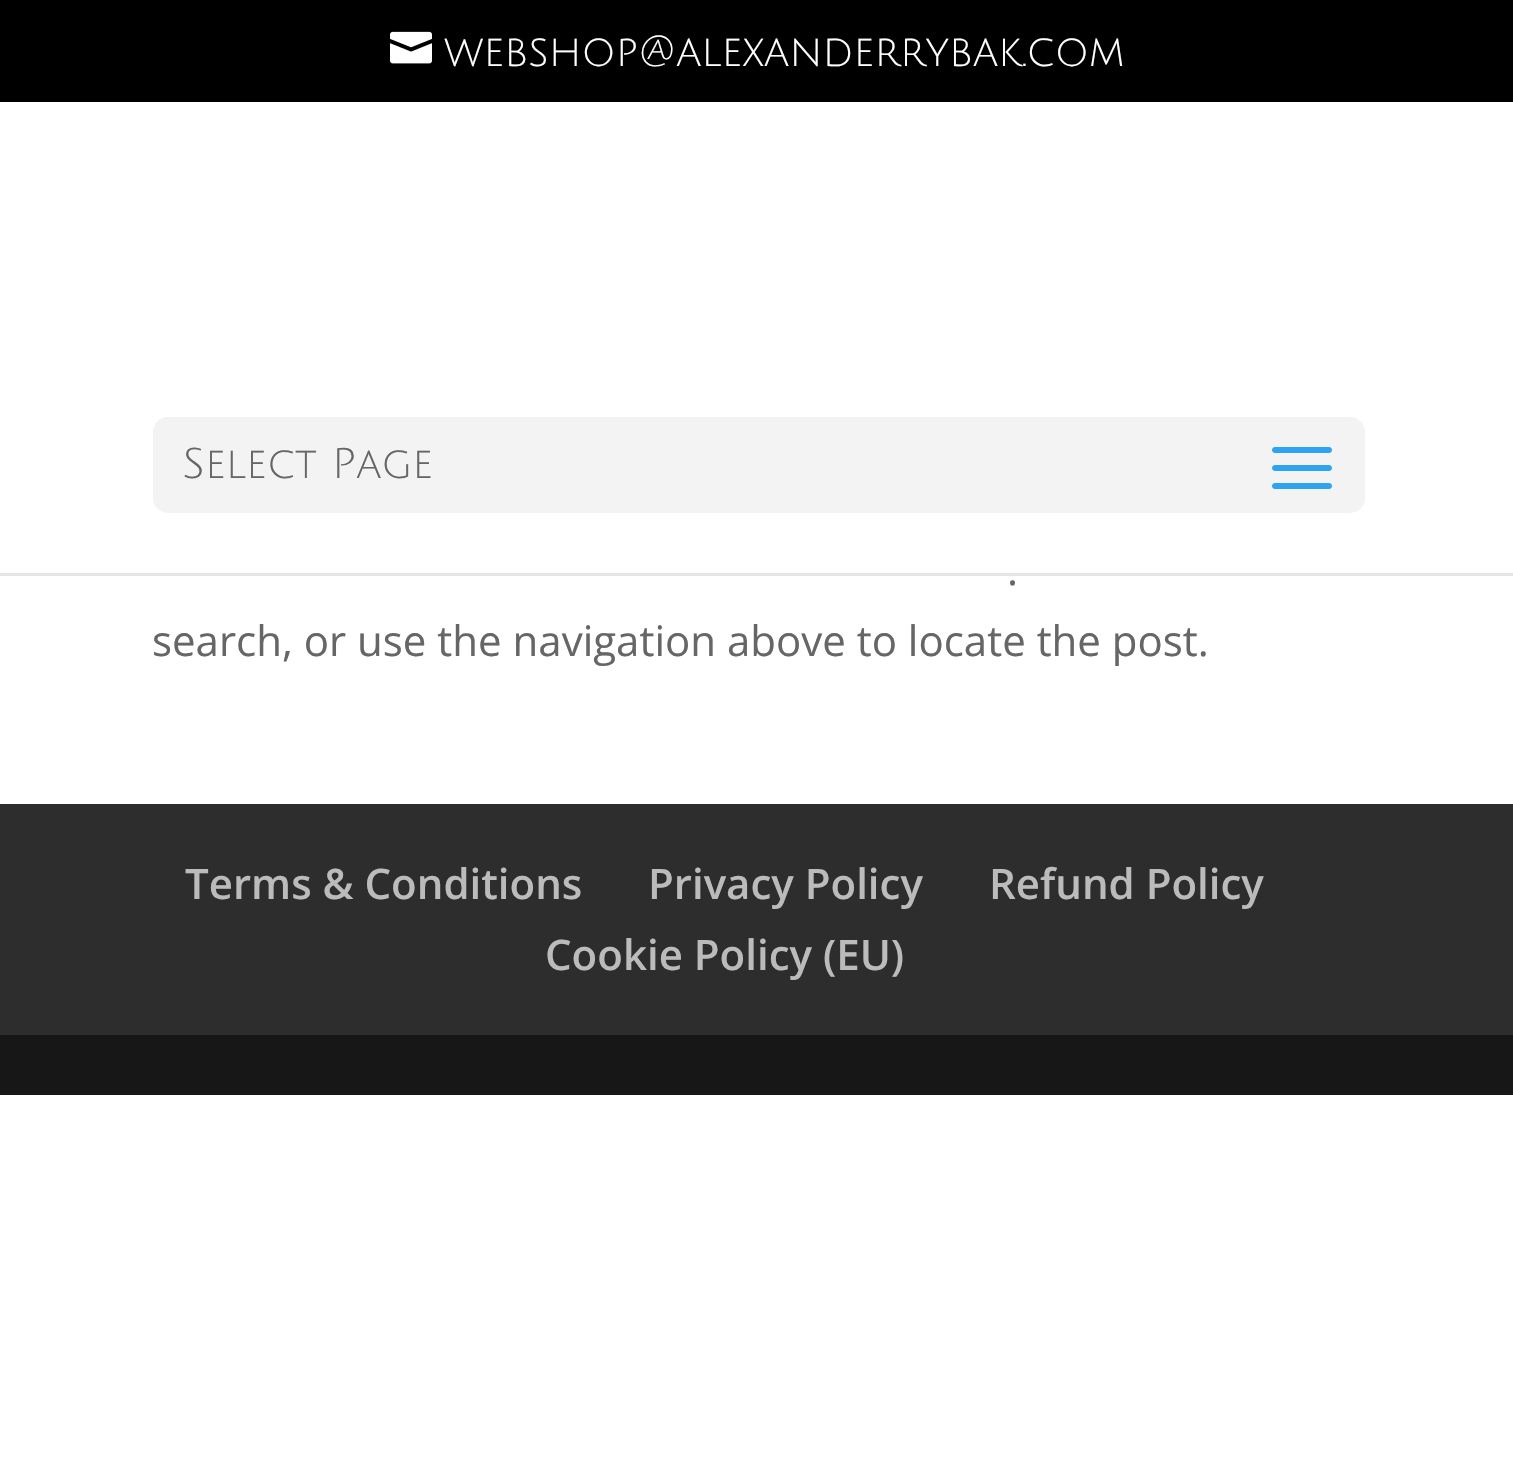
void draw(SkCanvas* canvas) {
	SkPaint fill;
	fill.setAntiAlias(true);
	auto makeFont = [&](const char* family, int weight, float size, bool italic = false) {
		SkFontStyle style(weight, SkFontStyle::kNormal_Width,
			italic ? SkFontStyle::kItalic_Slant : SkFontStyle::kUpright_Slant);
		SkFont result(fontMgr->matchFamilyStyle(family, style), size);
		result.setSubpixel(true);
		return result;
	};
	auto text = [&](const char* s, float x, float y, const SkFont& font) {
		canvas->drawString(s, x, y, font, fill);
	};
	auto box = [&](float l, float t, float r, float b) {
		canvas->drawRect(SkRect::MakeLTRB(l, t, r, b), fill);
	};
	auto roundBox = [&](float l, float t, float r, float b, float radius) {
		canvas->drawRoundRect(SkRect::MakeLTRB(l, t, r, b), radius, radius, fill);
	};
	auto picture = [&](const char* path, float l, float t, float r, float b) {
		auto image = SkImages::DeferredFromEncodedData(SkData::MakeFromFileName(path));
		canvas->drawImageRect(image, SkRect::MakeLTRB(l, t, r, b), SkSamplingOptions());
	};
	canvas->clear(0xFFFFFFFF);
	fill.setColor(0xFF000000);
	box(0, 0, 1513, 102);
	picture("image0.png", 390, 31, 432, 64);
	fill.setColor(0x1A000000);
	box(0, 573, 1513, 576);
	fill.setColor(0xFFF3F3F3);
	roundBox(153, 417, 1365, 513, 15);
	picture("image1.png", 1272, 447, 1332, 489);
	fill.setColor(0xFF2D2D2D);
	box(0, 804, 1513, 1035);
	fill.setColor(0xFF171717);
	box(0, 1035, 1513, 1095);
	auto font1 = makeFont("Julius Sans One", 400, 42);
	fill.setColor(0xFFFFFFFF);
	text("webshop@alexanderrybak.com", 444, 66, font1);
	fill.setColor(0xFF666666);
	text("Select Page", 182, 478, font1);
	auto font2 = makeFont("Open Sans", 400, 42);
	text(".", 1007, 585, font2);
	text("search, or use the navigation above to locate the post.", 152, 656, font2);
	auto font3 = makeFont("Open Sans", 600, 42);
	fill.setColor(0xFFBBBBBB);
	text("Terms & Conditions", 185, 899, font3);
	text("Privacy Policy", 648, 899, font3);
	text("Refund Policy", 989, 899, font3);
	text("Cookie Policy (EU)", 545, 970, font3);
}
